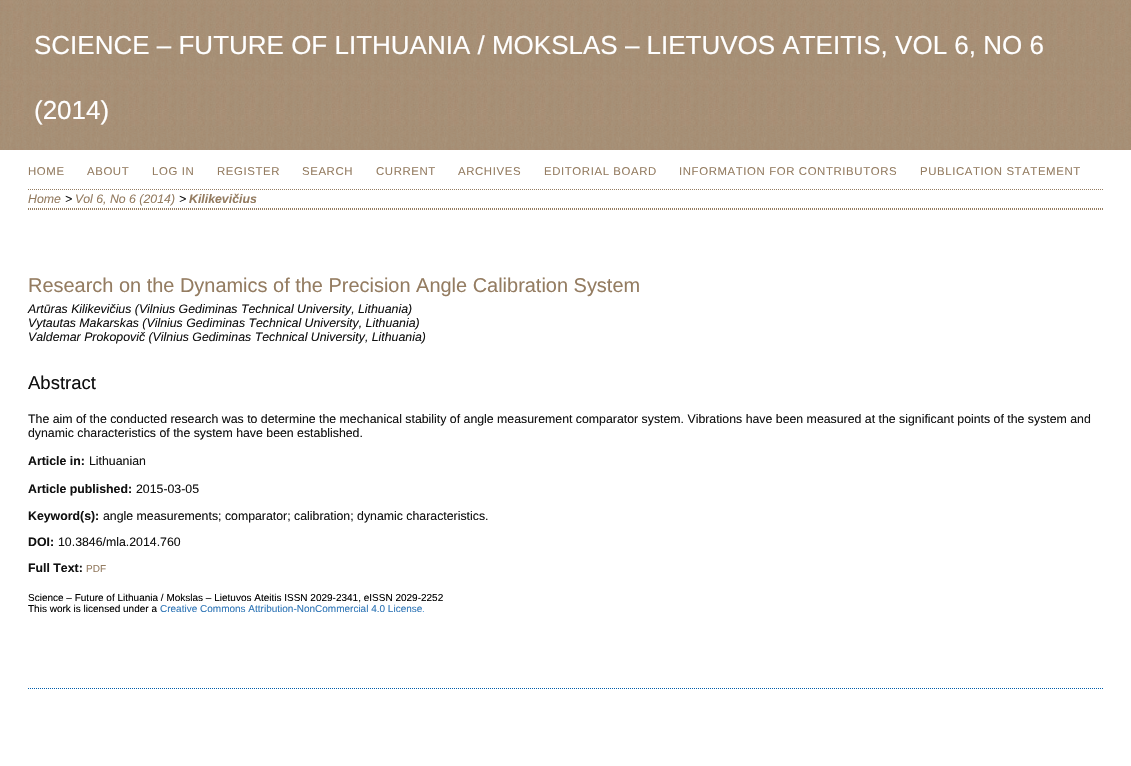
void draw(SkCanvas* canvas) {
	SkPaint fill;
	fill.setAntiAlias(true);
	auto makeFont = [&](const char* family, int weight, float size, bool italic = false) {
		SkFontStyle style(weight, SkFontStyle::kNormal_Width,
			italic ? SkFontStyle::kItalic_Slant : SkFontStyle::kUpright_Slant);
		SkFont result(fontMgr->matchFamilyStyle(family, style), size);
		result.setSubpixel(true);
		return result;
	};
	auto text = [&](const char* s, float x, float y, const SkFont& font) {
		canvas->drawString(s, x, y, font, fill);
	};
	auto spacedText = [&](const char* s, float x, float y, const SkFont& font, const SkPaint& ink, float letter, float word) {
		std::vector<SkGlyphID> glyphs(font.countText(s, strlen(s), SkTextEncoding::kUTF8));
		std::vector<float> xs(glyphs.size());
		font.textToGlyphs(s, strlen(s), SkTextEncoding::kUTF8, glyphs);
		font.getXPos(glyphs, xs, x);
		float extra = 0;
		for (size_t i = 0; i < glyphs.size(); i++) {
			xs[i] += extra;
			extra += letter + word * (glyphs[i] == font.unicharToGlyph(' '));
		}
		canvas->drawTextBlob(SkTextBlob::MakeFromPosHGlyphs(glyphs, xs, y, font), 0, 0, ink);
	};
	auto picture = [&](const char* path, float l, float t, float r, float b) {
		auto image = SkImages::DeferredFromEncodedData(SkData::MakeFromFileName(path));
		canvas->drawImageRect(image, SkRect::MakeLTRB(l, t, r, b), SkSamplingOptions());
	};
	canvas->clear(0xFFFFFFFF);
	picture("image0.png", 0, 0, 1131, 150);
	fill.setStyle(SkPaint::kStroke_Style);
	fill.setStrokeWidth(1);
	fill.setColor(0xFF005DAB);
	fill.setPathEffect(SkDashPathEffect::Make({{1, 1}}, 0));
	canvas->drawPath(SkPathBuilder().moveTo(28, 688.5f).lineTo(1103, 688.5f).detach(), fill);
	fill.setPathEffect(nullptr);
	fill.setColor(0xFF947C61);
	fill.setPathEffect(SkDashPathEffect::Make({{1, 1}}, 0));
	canvas->drawPath(SkPathBuilder().moveTo(28, 189.5f).lineTo(1103, 189.5f).detach(), fill);
	fill.setPathEffect(nullptr);
	fill.setPathEffect(SkDashPathEffect::Make({{1, 1}}, 0));
	canvas->drawPath(SkPathBuilder().moveTo(28, 208.5f).lineTo(1103, 208.5f).detach(), fill);
	fill.setPathEffect(nullptr);
	fill.setPathEffect(SkDashPathEffect::Make({{1, 1}}, 0));
	canvas->drawPath(SkPathBuilder().moveTo(28, 209.5f).lineTo(1103, 209.5f).detach(), fill);
	fill.setPathEffect(nullptr);
	auto font1 = makeFont("Liberation Sans", 400, 26);
	fill.setStyle(SkPaint::kFill_Style);
	fill.setColor(0xFFFFFFFF);
	text("SCIENCE – FUTURE OF LITHUANIA / MOKSLAS – LIETUVOS ATEITIS, VOL 6, NO 6", 34, 54, font1);
	text("(2014)", 34, 119, font1);
	auto font2 = makeFont("Liberation Sans", 400, 11.4f);
	fill.setColor(0xFF947C61);
	spacedText("HOME", 28, 175, font2, fill, 0.6f, 0);
	spacedText("ABOUT", 87, 175, font2, fill, 0.6f, 0);
	spacedText("LOG IN", 152, 175, font2, fill, 0.6f, 0);
	spacedText("REGISTER", 217, 175, font2, fill, 0.6f, 0);
	spacedText("SEARCH", 302, 175, font2, fill, 0.6f, 0);
	spacedText("CURRENT", 376, 175, font2, fill, 0.6f, 0);
	spacedText("ARCHIVES", 458, 175, font2, fill, 0.6f, 0);
	spacedText("EDITORIAL BOARD", 544, 175, font2, fill, 0.6f, 0);
	spacedText("INFORMATION FOR CONTRIBUTORS", 679, 175, font2, fill, 0.6f, 0);
	spacedText("PUBLICATION STATEMENT", 920, 175, font2, fill, 0.6f, 0);
	auto font3 = makeFont("Liberation Sans", 400, 12.32f, true);
	text("Home", 28, 203, font3);
	fill.setColor(0xFF111111);
	text(">", 65, 203, font3);
	fill.setColor(0xFF947C61);
	text("Vol 6, No 6 (2014)", 75, 203, font3);
	fill.setColor(0xFF111111);
	text(">", 179, 203, font3);
	auto font4 = makeFont("Liberation Sans", 700, 12.32f, true);
	fill.setColor(0xFF947C61);
	text("Kilikevičius", 189, 203, font4);
	auto font5 = makeFont("Liberation Sans", 400, 19.95f);
	text("Research on the Dynamics of the Precision Angle Calibration System", 28, 292, font5);
	fill.setColor(0xFF111111);
	text("Artūras Kilikevičius (Vilnius Gediminas Technical University, Lithuania)", 28, 313, font3);
	text("Vytautas Makarskas (Vilnius Gediminas Technical University, Lithuania)", 28, 327, font3);
	text("Valdemar Prokopovič (Vilnius Gediminas Technical University, Lithuania)", 28, 341, font3);
	auto font6 = makeFont("Liberation Sans", 400, 18.5f);
	text("Abstract", 28, 389, font6);
	auto font7 = makeFont("Liberation Sans", 400, 12.32f);
	text("The aim of the conducted research was to determine the mechanical stability of angle measurement comparator system. Vibrations have been measured at the significant points of the system and", 28, 423, font7);
	text("dynamic characteristics of the system have been established.", 28, 437, font7);
	auto font8 = makeFont("Liberation Sans", 700, 12.32f);
	text("Article in:", 28, 465, font8);
	text("Lithuanian", 89, 465, font7);
	text("Article published:", 28, 493, font8);
	text("2015-03-05", 136, 493, font7);
	text("Keyword(s):", 28, 520, font8);
	text("angle measurements; comparator; calibration; dynamic characteristics.", 103, 520, font7);
	text("DOI:", 28, 546, font8);
	text("10.3846/mla.2014.760", 58, 546, font7);
	text("Full Text:", 28, 572, font8);
	auto font9 = makeFont("Liberation Sans", 400, 10);
	fill.setColor(0xFF947C61);
	text("PDF", 86, 572, font9);
	fill.setColor(0xFF000000);
	text("Science – Future of Lithuania / Mokslas – Lietuvos Ateitis ISSN 2029-2341, eISSN 2029-2252", 28, 601, font9);
	text("This work is licensed under a", 28, 612, font9);
	fill.setColor(0xFF2E75B6);
	text("Creative Commons Attribution-NonCommercial 4.0 License", 160, 612, font9);
	fill.setColor(0xFF5B9BD5);
	text(".", 422, 612, font9);
}
